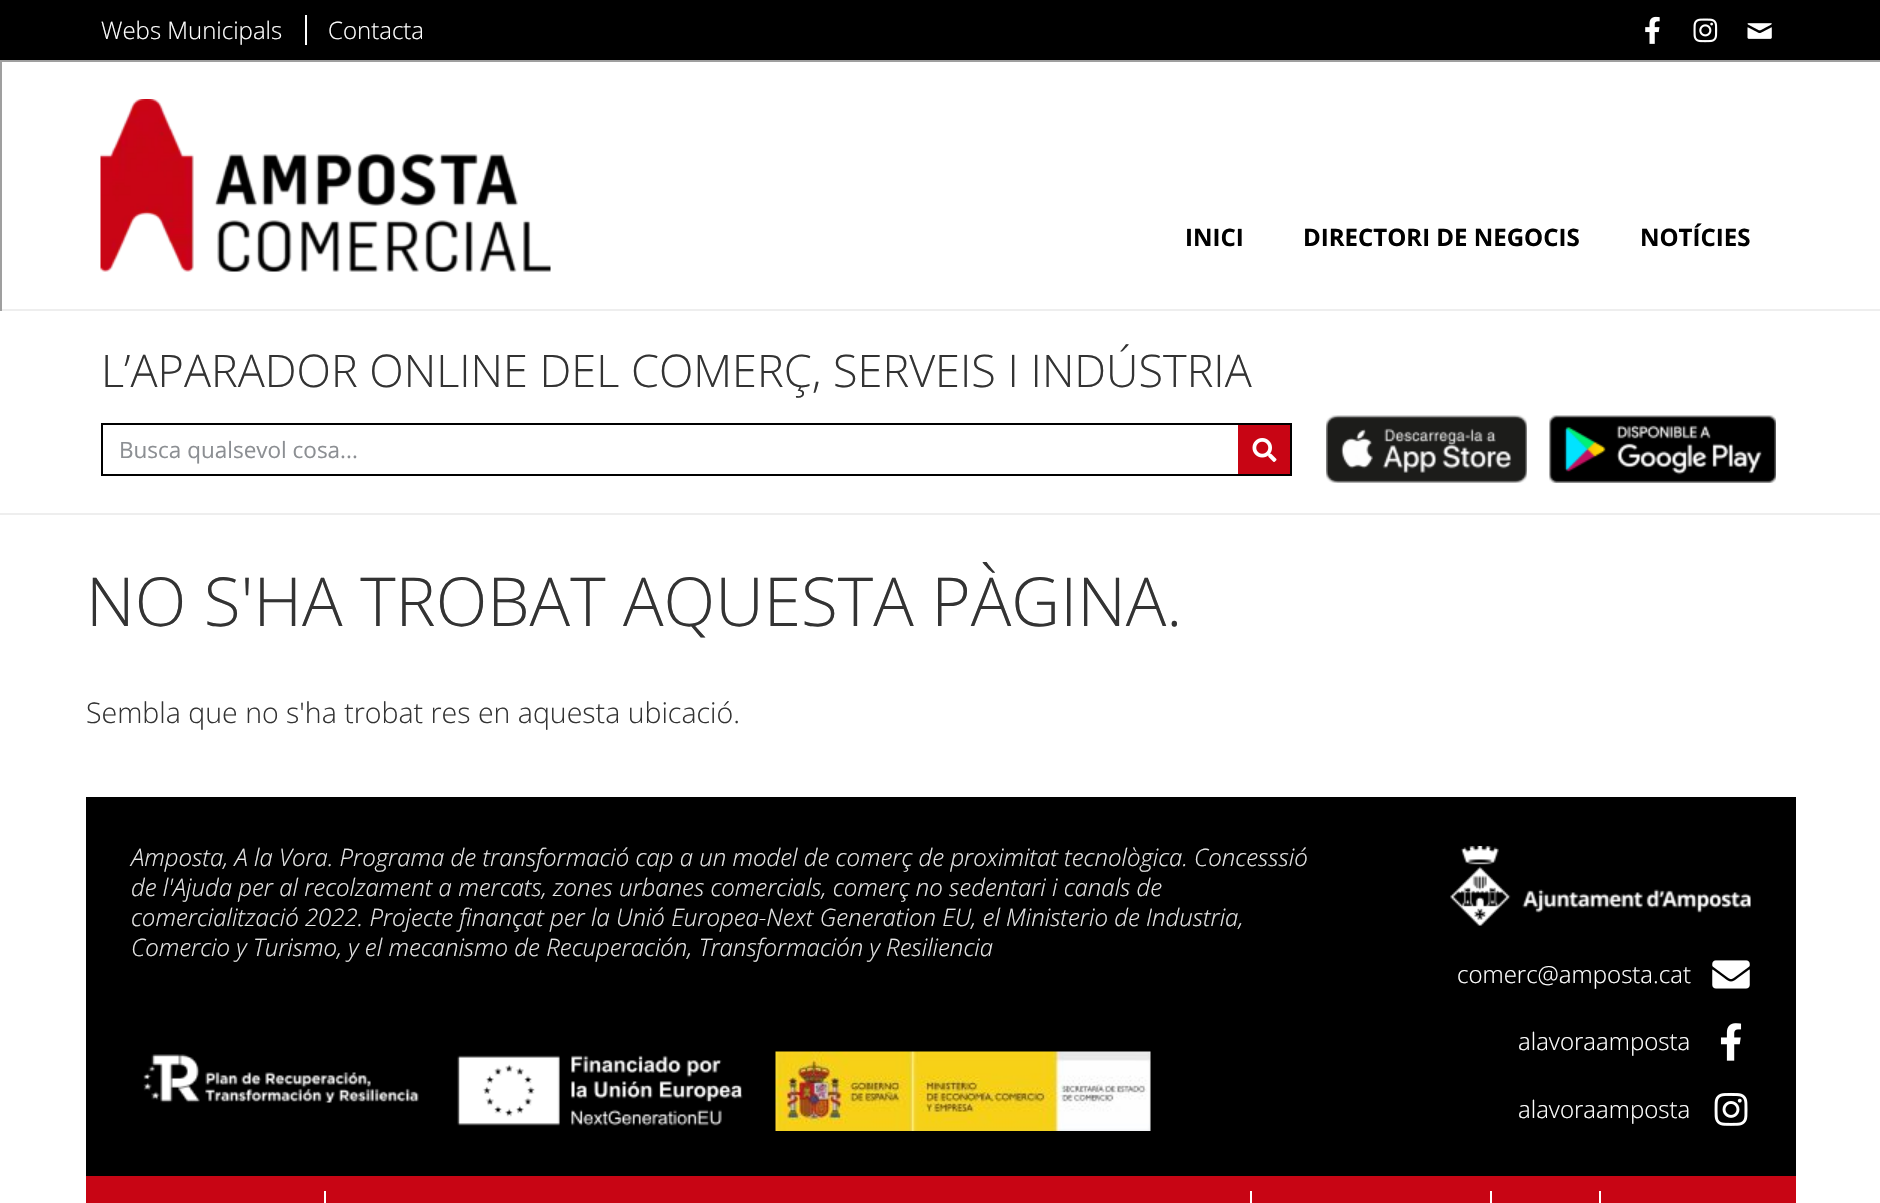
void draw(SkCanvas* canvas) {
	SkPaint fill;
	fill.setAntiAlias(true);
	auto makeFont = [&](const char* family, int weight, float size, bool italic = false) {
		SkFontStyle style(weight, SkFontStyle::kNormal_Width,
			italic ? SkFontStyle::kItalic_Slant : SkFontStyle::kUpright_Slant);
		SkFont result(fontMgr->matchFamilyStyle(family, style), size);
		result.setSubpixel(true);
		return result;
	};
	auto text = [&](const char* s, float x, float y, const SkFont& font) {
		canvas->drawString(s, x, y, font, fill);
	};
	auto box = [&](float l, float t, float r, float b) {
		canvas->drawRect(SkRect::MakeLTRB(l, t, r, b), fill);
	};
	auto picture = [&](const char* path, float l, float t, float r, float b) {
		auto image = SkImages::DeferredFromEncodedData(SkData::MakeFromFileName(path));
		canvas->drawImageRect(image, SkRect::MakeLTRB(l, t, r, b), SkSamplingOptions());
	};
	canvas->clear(0xFFFFFFFF);
	fill.setColor(0xFF000000);
	box(0, 0, 1880, 60);
	fill.setColor(0xFFFFFFFF);
	box(305, 15, 307, 45);
	picture("image0.png", 1645, 16, 1660, 44);
	picture("image1.png", 1693, 18, 1718, 43);
	picture("image2.png", 1747, 23, 1772, 39);
	fill.setColor(0xFF9F9F9F);
	box(0, 60, 1880, 62);
	fill.setColor(0xFFEEEEEE);
	box(0, 309, 1880, 311);
	fill.setColor(0xFF9F9F9F);
	box(0, 60, 2, 311);
	picture("image3.png", 100, 99, 551, 272);
	fill.setColor(0xFFEEEEEE);
	box(0, 513, 1880, 515);
	fill.setStyle(SkPaint::kStroke_Style);
	fill.setStrokeWidth(2);
	fill.setColor(0xFF000000);
	canvas->drawRect(SkRect::MakeLTRB(102, 424, 1291, 475), fill);
	fill.setStyle(SkPaint::kFill_Style);
	fill.setColor(0xFFC80514);
	box(1238, 425, 1290, 474);
	picture("image4.png", 1252, 438, 1277, 462);
	picture("image5.png", 1326, 415, 1527, 483);
	picture("image6.png", 1549, 415, 1776, 483);
	fill.setColor(0xFF000000);
	box(86, 797, 1796, 1176);
	picture("image7.png", 143, 1054, 419, 1103);
	picture("image8.png", 457, 1055, 743, 1126);
	picture("image9.png", 775, 1051, 1151, 1131);
	picture("image10.png", 1450, 846, 1751, 926);
	picture("image11.png", 1712, 960, 1750, 989);
	picture("image12.png", 1720, 1023, 1742, 1061);
	picture("image13.png", 1714, 1092, 1748, 1126);
	fill.setColor(0xFFC80514);
	box(86, 1176, 1796, 1203);
	fill.setColor(0xFFFFFFFF);
	box(324, 1191, 326, 1203);
	box(1250, 1191, 1252, 1203);
	box(1490, 1191, 1492, 1203);
	box(1599, 1191, 1601, 1203);
	auto font1 = makeFont("Open Sans", 300, 24);
	text("Webs Municipals", 101, 39, font1);
	text("Contacta", 328, 39, font1);
	auto font2 = makeFont("Open Sans", 700, 24);
	fill.setColor(0xFF000000);
	text("INICI", 1185, 246, font2);
	text("DIRECTORI DE NEGOCIS", 1303, 246, font2);
	text("NOTÍCIES", 1640, 246, font2);
	auto font3 = makeFont("Open Sans", 300, 45);
	fill.setColor(0xFF333333);
	text("L’APARADOR ONLINE DEL COMERÇ, SERVEIS I INDÚSTRIA", 101, 387, font3);
	auto font4 = makeFont("Open Sans", 400, 22.5f);
	fill.setColor(0xFF8C8F93);
	text("Busca qualsevol cosa...", 119, 458, font4);
	auto font5 = makeFont("Open Sans", 300, 67.5f);
	fill.setColor(0xFF333333);
	text("NO S'HA TROBAT AQUESTA PÀGINA.", 86, 626, font5);
	auto font6 = makeFont("Open Sans", 300, 28.5f);
	text("Sembla que no s'ha trobat res en aquesta ubicació.", 86, 723, font6);
	auto font7 = makeFont("Open Sans", 300, 24, true);
	fill.setColor(0xFFE6E6E6);
	text("Amposta, A la Vora. Programa de transformació cap a un model de comerç de proximitat tecnològica. Concesssió", 131, 866, font7);
	text("de l'Ajuda per al recolzament a mercats, zones urbanes comercials, comerç no sedentari i canals de", 131, 896, font7);
	text("comercialització 2022. Projecte finançat per la Unió Europea-Next Generation EU, el Ministerio de Industria,", 131, 926, font7);
	text("Comercio y Turismo, y el mecanismo de Recuperación, Transformación y Resiliencia", 131, 956, font7);
	fill.setColor(0xFFFFFFFF);
	text("comerc@amposta.cat", 1457, 983, font1);
	text("alavoraamposta", 1518, 1050, font1);
	text("alavoraamposta", 1518, 1118, font1);
}
